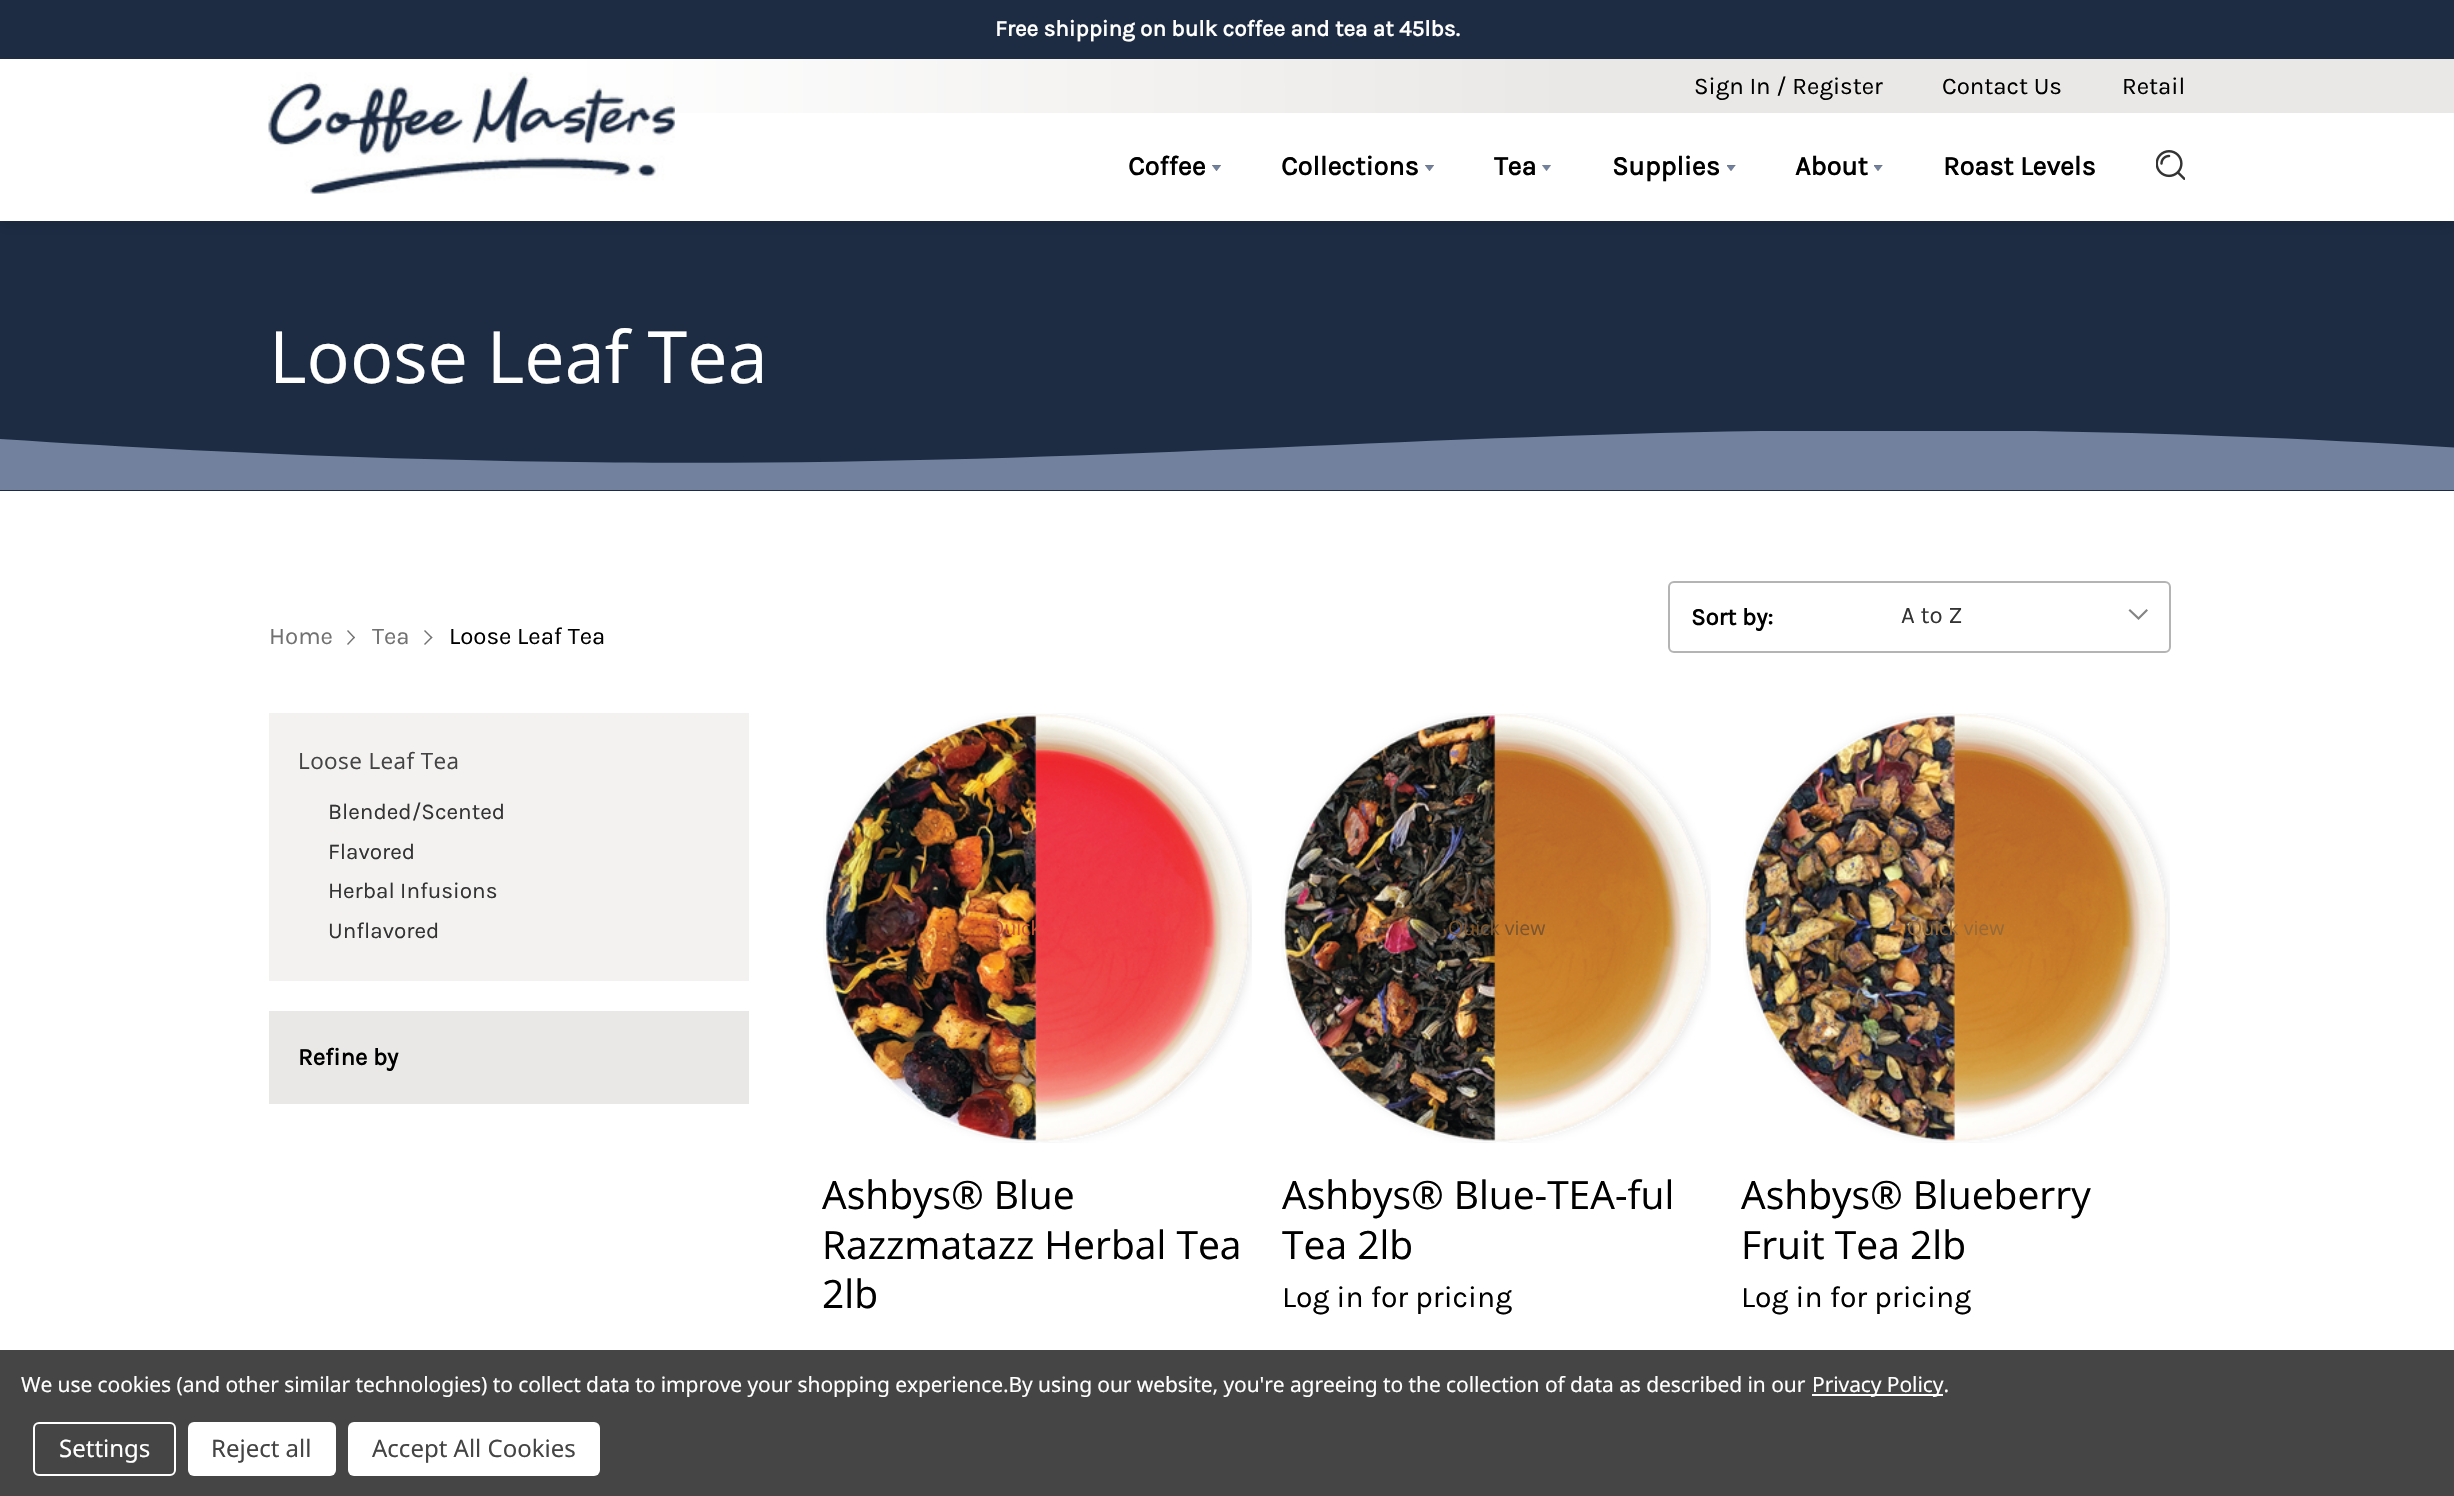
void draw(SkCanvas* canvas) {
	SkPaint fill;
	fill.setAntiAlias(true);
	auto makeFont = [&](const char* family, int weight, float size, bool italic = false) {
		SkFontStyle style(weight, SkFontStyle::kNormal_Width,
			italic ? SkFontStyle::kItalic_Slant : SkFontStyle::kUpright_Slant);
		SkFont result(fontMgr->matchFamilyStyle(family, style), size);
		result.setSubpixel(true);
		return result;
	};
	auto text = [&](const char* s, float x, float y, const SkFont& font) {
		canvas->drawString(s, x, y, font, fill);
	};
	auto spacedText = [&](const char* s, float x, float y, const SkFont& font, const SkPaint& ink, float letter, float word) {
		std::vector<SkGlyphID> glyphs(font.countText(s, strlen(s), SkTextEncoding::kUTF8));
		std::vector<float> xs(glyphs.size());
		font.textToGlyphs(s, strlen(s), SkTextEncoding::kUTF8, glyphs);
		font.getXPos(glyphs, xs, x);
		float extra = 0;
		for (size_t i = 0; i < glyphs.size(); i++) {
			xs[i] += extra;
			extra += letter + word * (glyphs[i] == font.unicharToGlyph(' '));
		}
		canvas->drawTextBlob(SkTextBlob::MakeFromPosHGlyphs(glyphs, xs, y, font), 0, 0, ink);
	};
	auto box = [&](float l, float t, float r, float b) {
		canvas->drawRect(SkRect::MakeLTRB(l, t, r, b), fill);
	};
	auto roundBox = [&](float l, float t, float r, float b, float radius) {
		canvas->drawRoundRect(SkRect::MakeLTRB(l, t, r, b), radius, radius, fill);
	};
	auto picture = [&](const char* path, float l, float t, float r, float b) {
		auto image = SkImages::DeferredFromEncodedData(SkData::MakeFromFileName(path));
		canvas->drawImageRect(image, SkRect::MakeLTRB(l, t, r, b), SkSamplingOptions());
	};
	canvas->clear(0xFFFFFFFF);
	fill.setColor(0xFF1D2C43);
	box(0, 221, 2454, 491);
	fill.setColor(0x24000000);
	fill.setMaskFilter(SkMaskFilter::MakeBlur(kNormal_SkBlurStyle, 7));
	canvas->drawRect(SkRect::MakeLTRB(0, 3, 2454, 224), fill);
	fill.setMaskFilter(nullptr);
	fill.setColor(0xFFFFFFFF);
	box(0, 59, 2454, 221);
	fill.setColor(0xFF1D2C43);
	box(0, 0, 2454, 59);
	picture("image0.png", 268, 72, 675, 194);
	{
		const SkColor colors[] = {0x00EAE8E6, 0xFFEAE8E6};
		const float stops[] = {0.23f, 0.64f};
		const SkPoint ends[] = {{0, 86}, {2454, 85}};
		fill.setShader(SkGradientShader::MakeLinear(ends, colors, stops, 2, SkTileMode::kClamp));
		fill.setAlpha(255);
	}
	box(587, 59, 2454, 113);
	picture("image1.png", 1212, 165, 1221, 171);
	picture("image1.png", 1425, 165, 1434, 171);
	picture("image2.png", 1542, 165, 1551, 171);
	picture("image3.png", 1727, 165, 1736, 171);
	picture("image3.png", 1874, 165, 1883, 171);
	picture("image4.png", 2156, 150, 2185, 180);
	canvas->save();
	canvas->clipRect(SkRect::MakeLTRB(0, 431, 2454, 491));
	fill.setShader(nullptr);
	fill.setColor(0xFF72829E);
	canvas->drawPath(SkPathBuilder().moveTo(-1, 439).cubicTo(1131, 513, 1442, 385, 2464, 448).lineTo(2454, 490).lineTo(0, 490).close().detach(), fill);
	canvas->restore();
	fill.setColor(0xFF717171);
	canvas->drawPath(SkPathBuilder().moveTo(347, 631).lineTo(348, 630).lineTo(355, 637.5f).lineTo(354, 638.5f).close().detach(), fill);
	canvas->drawPath(SkPathBuilder().moveTo(347, 644).lineTo(354, 636.5f).lineTo(355, 637.5f).lineTo(348, 645).close().detach(), fill);
	canvas->drawPath(SkPathBuilder().moveTo(424, 631).lineTo(425, 630).lineTo(432.5f, 637.5f).lineTo(431.5f, 638.5f).close().detach(), fill);
	canvas->drawPath(SkPathBuilder().moveTo(424, 644).lineTo(431.5f, 636.5f).lineTo(432.5f, 637.5f).lineTo(425, 645).close().detach(), fill);
	fill.setStyle(SkPaint::kStroke_Style);
	fill.setStrokeWidth(2);
	fill.setColor(0xFFB4B4B4);
	canvas->drawRoundRect(SkRect::MakeLTRB(1669, 582, 2170, 652), 5, 5, fill);
	fill.setStyle(SkPaint::kFill_Style);
	fill.setColor(0xFF848484);
	canvas->drawPath(SkPathBuilder().moveTo(2138.5f, 620).lineTo(2148, 610.5f).lineTo(2146.5f, 609).lineTo(2138.5f, 617).lineTo(2130, 609).lineTo(2128.5f, 610.5f).close().detach(), fill);
	picture("image5.png", 823, 713, 1252, 1143);
	picture("image6.png", 1281, 713, 1711, 1143);
	picture("image7.png", 1743, 713, 2170, 1143);
	fill.setColor(0xFFEAE8E6);
	box(269, 1011, 749, 1104);
	fill.setColor(0xFFF3F2F1);
	box(269, 713, 749, 981);
	fill.setColor(0xFF454545);
	box(0, 1350, 2454, 1496);
	fill.setColor(0xFFFFFFFF);
	box(1812, 1394, 1943, 1396);
	fill.setStyle(SkPaint::kStroke_Style);
	canvas->drawRoundRect(SkRect::MakeLTRB(34, 1423, 175, 1475), 5, 5, fill);
	fill.setStyle(SkPaint::kFill_Style);
	roundBox(188, 1422, 336, 1476, 6);
	roundBox(348, 1422, 600, 1476, 6);
	auto font1 = makeFont("Karla", 700, 22.5f);
	text("Free shipping on bulk coffee and tea at 45lbs.", 995, 36, font1);
	auto font2 = makeFont("Karla", 400, 24);
	fill.setColor(0xFF000000);
	text("Sign In / Register", 1694, 94, font2);
	text("Contact Us", 1942, 94, font2);
	text("Retail", 2122, 94, font2);
	auto font3 = makeFont("Karla", 700, 27);
	text("Coffee", 1128, 175, font3);
	text("Collections", 1281, 175, font3);
	text("Tea", 1494, 175, font3);
	text("Supplies", 1612, 175, font3);
	text("About", 1795, 175, font3);
	text("Roast Levels", 1943, 175, font3);
	auto font4 = makeFont("Open Sans", 400, 72);
	fill.setColor(0xFFFFFFFF);
	text("Loose Leaf Tea", 269, 383, font4);
	fill.setColor(0xFF717171);
	text("Home", 269, 644, font2);
	text("Tea", 372, 644, font2);
	fill.setColor(0xFF000000);
	text("Loose Leaf Tea", 449, 644, font2);
	auto font5 = makeFont("Karla", 700, 24);
	text("Sort by:", 1691, 625, font5);
	fill.setColor(0xFF333333);
	text("A to Z", 1901, 623, font2);
	auto font6 = makeFont("Open Sans", 400, 19.5f);
	fill.setColor(0xFFCE5738);
	text("Quick", 989, 935, font6);
	auto font7 = makeFont("Open Sans", 400, 39);
	fill.setColor(0xFF000000);
	text("Ashbys® Blue", 822, 1209, font7);
	text("Razzmatazz Herbal Tea", 822, 1259, font7);
	text("2lb", 822, 1308, font7);
	fill.setColor(0xFF7C552E);
	text("Quick view", 1448, 935, font6);
	fill.setColor(0xFF000000);
	text("Ashbys® Blue-TEA-ful", 1282, 1209, font7);
	text("Tea 2lb", 1282, 1259, font7);
	auto font8 = makeFont("Karla", 400, 30);
	text("Log in for pricing", 1282, 1307, font8);
	fill.setColor(0xFF976937);
	text("Quick view", 1907, 935, font6);
	fill.setColor(0xFF000000);
	text("Ashbys® Blueberry", 1741, 1209, font7);
	text("Fruit Tea 2lb", 1741, 1259, font7);
	text("Log in for pricing", 1741, 1307, font8);
	auto font9 = makeFont("Open Sans", 400, 22.5f);
	fill.setColor(0xFF444444);
	spacedText("Loose Leaf Tea", 298, 769, font9, fill, 0.4f, 0);
	auto font10 = makeFont("Karla", 400, 22.5f);
	fill.setColor(0xFF333333);
	text("Blended/Scented", 328, 819, font10);
	text("Flavored", 328, 859, font10);
	text("Herbal Infusions", 328, 898, font10);
	text("Unflavored", 328, 938, font10);
	fill.setColor(0xFF000000);
	text("Refine by", 298, 1065, font5);
	auto font11 = makeFont("Noto Sans", 400, 21);
	fill.setColor(0xFFFFFFFF);
	spacedText("We use cookies (and other similar technologies) to collect data to improve your shopping experience.By using our website, you're agreeing to the collection of data as described in our", 21, 1392, font11, fill, -0.08f, 0);
	spacedText("Privacy Policy.", 1812, 1392, font11, fill, -0.08f, 0);
	auto font12 = makeFont("Noto Sans", 400, 24);
	text("Settings", 59, 1457, font12);
	fill.setColor(0xFF444444);
	text("Reject all", 211, 1457, font12);
	text("Accept All Cookies", 372, 1457, font12);
}
